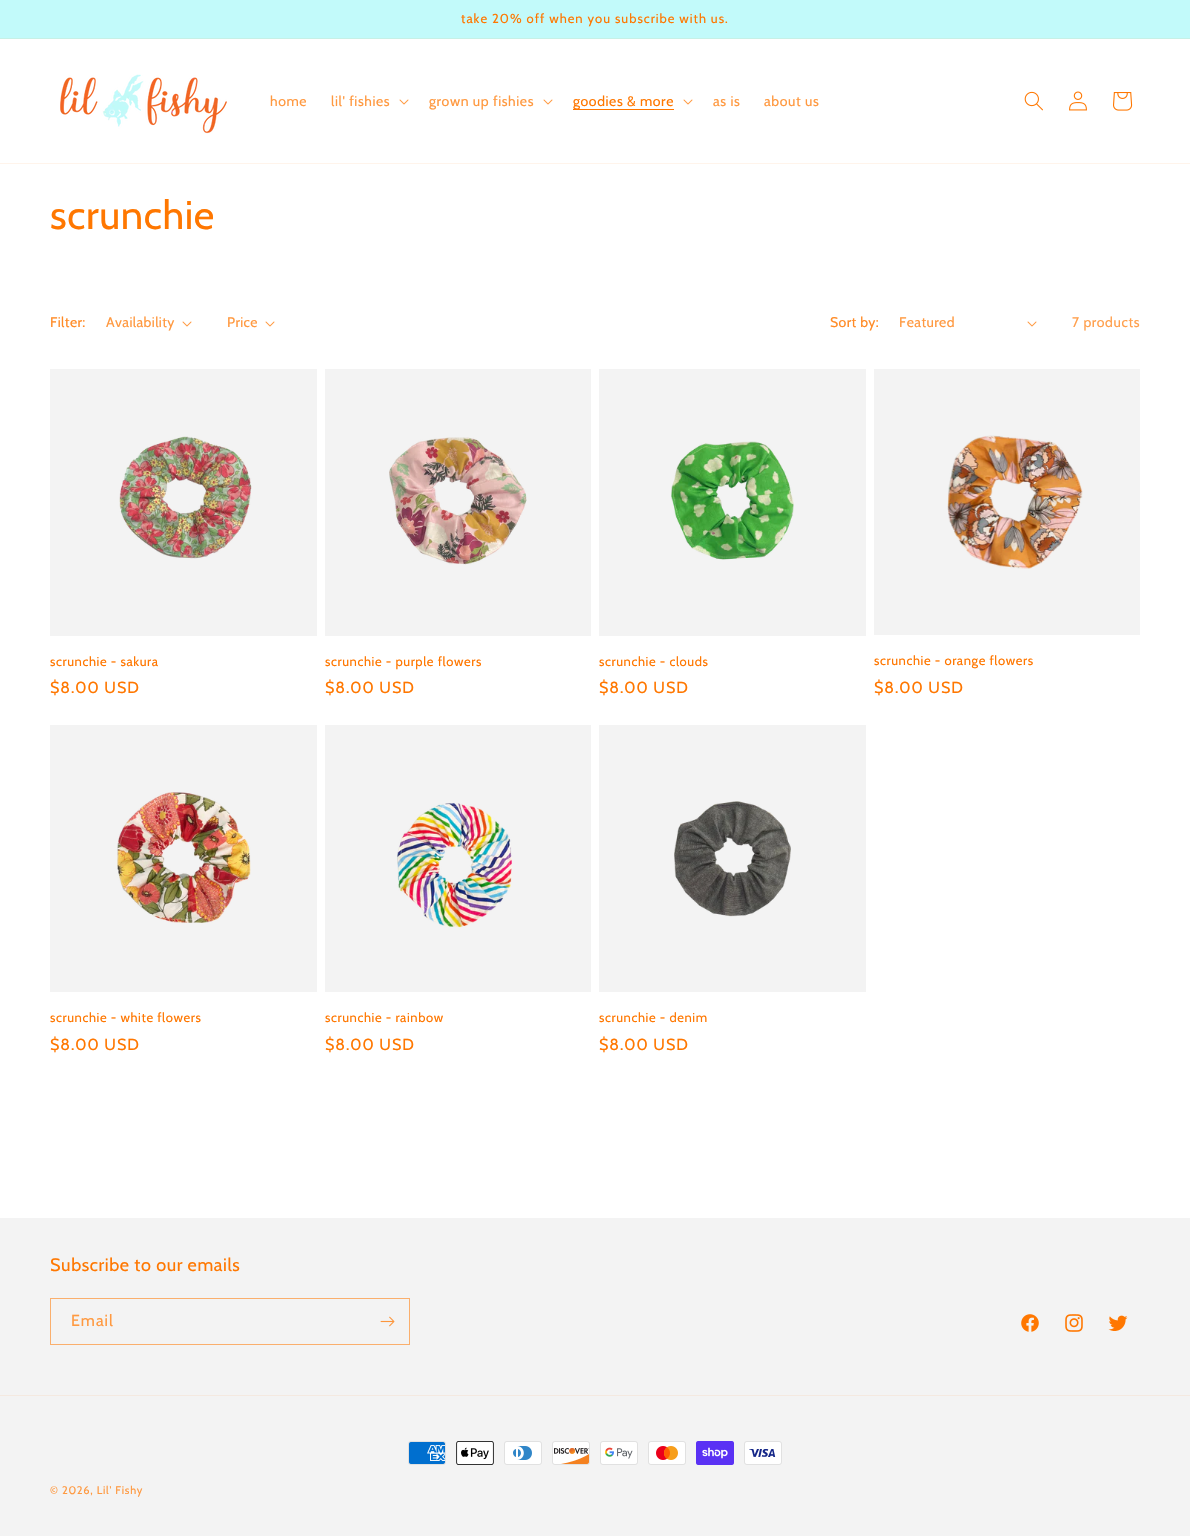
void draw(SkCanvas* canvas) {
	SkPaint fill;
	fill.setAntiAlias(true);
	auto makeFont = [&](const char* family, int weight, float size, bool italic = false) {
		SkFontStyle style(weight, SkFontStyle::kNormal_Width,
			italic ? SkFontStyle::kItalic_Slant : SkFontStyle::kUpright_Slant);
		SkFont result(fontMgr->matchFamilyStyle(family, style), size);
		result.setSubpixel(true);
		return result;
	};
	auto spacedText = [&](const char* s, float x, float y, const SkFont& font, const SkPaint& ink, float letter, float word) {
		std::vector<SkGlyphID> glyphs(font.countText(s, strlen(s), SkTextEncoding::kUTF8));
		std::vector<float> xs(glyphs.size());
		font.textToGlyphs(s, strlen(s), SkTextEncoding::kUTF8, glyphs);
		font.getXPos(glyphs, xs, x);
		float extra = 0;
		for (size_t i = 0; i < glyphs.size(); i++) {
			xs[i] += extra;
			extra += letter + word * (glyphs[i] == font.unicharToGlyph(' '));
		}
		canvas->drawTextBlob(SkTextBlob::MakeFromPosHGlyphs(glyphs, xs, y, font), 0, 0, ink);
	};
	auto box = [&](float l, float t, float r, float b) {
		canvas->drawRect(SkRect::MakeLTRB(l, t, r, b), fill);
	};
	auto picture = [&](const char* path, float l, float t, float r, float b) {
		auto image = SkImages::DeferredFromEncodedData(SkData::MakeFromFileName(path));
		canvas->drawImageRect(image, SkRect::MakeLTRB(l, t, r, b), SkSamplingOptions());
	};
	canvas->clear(0xFFFFFFFF);
	fill.setColor(0xFFC2FAFA);
	box(0, 0, 1190, 38);
	fill.setColor(0xFFC7F0E6);
	box(0, 38, 1190, 39);
	fill.setColor(0xFFFFF4EB);
	box(0, 163, 1190, 164);
	picture("image0.png", 60, 74, 227, 134);
	picture("image1.png", 399, 99, 409, 105);
	picture("image1.png", 543, 99, 553, 105);
	fill.setColor(0xFFFF7700);
	box(573, 109, 674, 110);
	picture("image1.png", 683, 99, 693, 105);
	picture("image2.png", 1024, 91, 1043, 111);
	picture("image3.png", 1069, 91, 1087, 111);
	picture("image4.png", 1113, 92, 1133, 111);
	picture("image1.png", 182, 321, 192, 327);
	picture("image1.png", 265, 321, 275, 327);
	picture("image1.png", 1027, 321, 1037, 327);
	fill.setColor(0xFFF3F3F3);
	box(50, 369, 317, 636);
	picture("image5.png", 119, 436, 252, 559);
	box(325, 369, 591, 636);
	picture("image6.png", 389, 437, 527, 565);
	box(599, 369, 866, 636);
	picture("image7.png", 671, 441, 794, 560);
	box(874, 369, 1140, 635);
	picture("image8.png", 947, 435, 1083, 569);
	box(50, 725, 317, 992);
	picture("image9.png", 117, 792, 251, 923);
	box(325, 725, 591, 992);
	picture("image10.png", 397, 803, 512, 928);
	box(599, 725, 866, 992);
	picture("image11.png", 674, 801, 791, 917);
	box(0, 1218, 1190, 1536);
	fill.setStyle(SkPaint::kStroke_Style);
	fill.setStrokeWidth(1);
	fill.setColor(0xFFFAAF6D);
	canvas->drawRect(SkRect::MakeLTRB(50.5f, 1298.5f, 409.5f, 1344.5f), fill);
	picture("image12.png", 380, 1316, 395, 1327);
	picture("image13.png", 1021, 1314, 1039, 1332);
	picture("image14.png", 1065, 1314, 1083, 1332);
	picture("image15.png", 1108, 1315, 1128, 1331);
	fill.setStyle(SkPaint::kFill_Style);
	fill.setColor(0xFFF4E9E0);
	box(0, 1395, 1190, 1396);
	picture("image16.png", 408, 1441, 446, 1465);
	picture("image17.png", 456, 1441, 494, 1465);
	picture("image18.png", 504, 1441, 542, 1465);
	picture("image19.png", 552, 1441, 590, 1465);
	picture("image20.png", 600, 1441, 638, 1465);
	picture("image21.png", 648, 1441, 686, 1465);
	picture("image22.png", 696, 1441, 734, 1465);
	picture("image23.png", 744, 1441, 782, 1465);
	auto font1 = makeFont("Cabin", 400, 13);
	fill.setColor(0xFFFF7700);
	spacedText("take 20% off when you subscribe with us.", 461, 23, font1, fill, 1, 0);
	auto font2 = makeFont("Cabin", 400, 14);
	fill.setColor(0xFFFF9940);
	spacedText("home", 270, 106, font2, fill, 0.6f, 0);
	spacedText("lil' fishies", 331, 106, font2, fill, 0.6f, 0);
	spacedText("grown up fishies", 429, 106, font2, fill, 0.6f, 0);
	fill.setColor(0xFFFF7700);
	spacedText("goodies & more", 573, 106, font2, fill, 0.6f, 0);
	fill.setColor(0xFFFF9940);
	spacedText("as is", 713, 106, font2, fill, 0.6f, 0);
	spacedText("about us", 764, 106, font2, fill, 0.6f, 0);
	auto font3 = makeFont("Cabin", 400, 40);
	fill.setColor(0xFFFF7700);
	spacedText("scrunchie", 50, 229, font3, fill, 0.6f, 0);
	fill.setColor(0xFFFF8B26);
	spacedText("Filter:", 50, 327, font2, fill, 0.4f, 0);
	fill.setColor(0xFFFF9940);
	spacedText("Availability", 106, 327, font2, fill, 0.4f, 0);
	spacedText("Price", 227, 327, font2, fill, 0.4f, 0);
	fill.setColor(0xFFFF8B26);
	spacedText("Sort by:", 830, 327, font2, fill, 0.4f, 0);
	fill.setColor(0xFFFF9940);
	spacedText("Featured", 899, 327, font2, fill, 0.4f, 0);
	fill.setColor(0xFFFFA04D);
	spacedText("7 products", 1072, 327, font2, fill, 0.6f, 0);
	fill.setColor(0xFFFF7700);
	spacedText("scrunchie - sakura", 50, 666, font1, fill, 0.6f, 0);
	auto font4 = makeFont("Cabin", 400, 16);
	spacedText("$8.00 USD", 50, 693, font4, fill, 1, 0);
	spacedText("scrunchie - purple flowers", 325, 666, font1, fill, 0.6f, 0);
	spacedText("$8.00 USD", 325, 693, font4, fill, 1, 0);
	spacedText("scrunchie - clouds", 599, 666, font1, fill, 0.6f, 0);
	spacedText("$8.00 USD", 599, 693, font4, fill, 1, 0);
	spacedText("scrunchie - orange flowers", 874, 665, font1, fill, 0.6f, 0);
	spacedText("$8.00 USD", 874, 693, font4, fill, 1, 0);
	spacedText("scrunchie - white flowers", 50, 1022, font1, fill, 0.6f, 0);
	spacedText("$8.00 USD", 50, 1050, font4, fill, 1, 0);
	spacedText("scrunchie - rainbow", 325, 1022, font1, fill, 0.6f, 0);
	spacedText("$8.00 USD", 325, 1050, font4, fill, 1, 0);
	spacedText("scrunchie - denim", 599, 1022, font1, fill, 0.6f, 0);
	spacedText("$8.00 USD", 599, 1050, font4, fill, 1, 0);
	auto font5 = makeFont("Cabin", 400, 18);
	spacedText("Subscribe to our emails", 50, 1271, font5, fill, 0.6f, 0);
	fill.setColor(0xFFFF9940);
	spacedText("Email", 71, 1326, font4, fill, 1, 0);
	auto font6 = makeFont("Cabin", 400, 11);
	spacedText("© 2026, Lil' Fishy", 50, 1494, font6, fill, 0.75f, 0);
}
